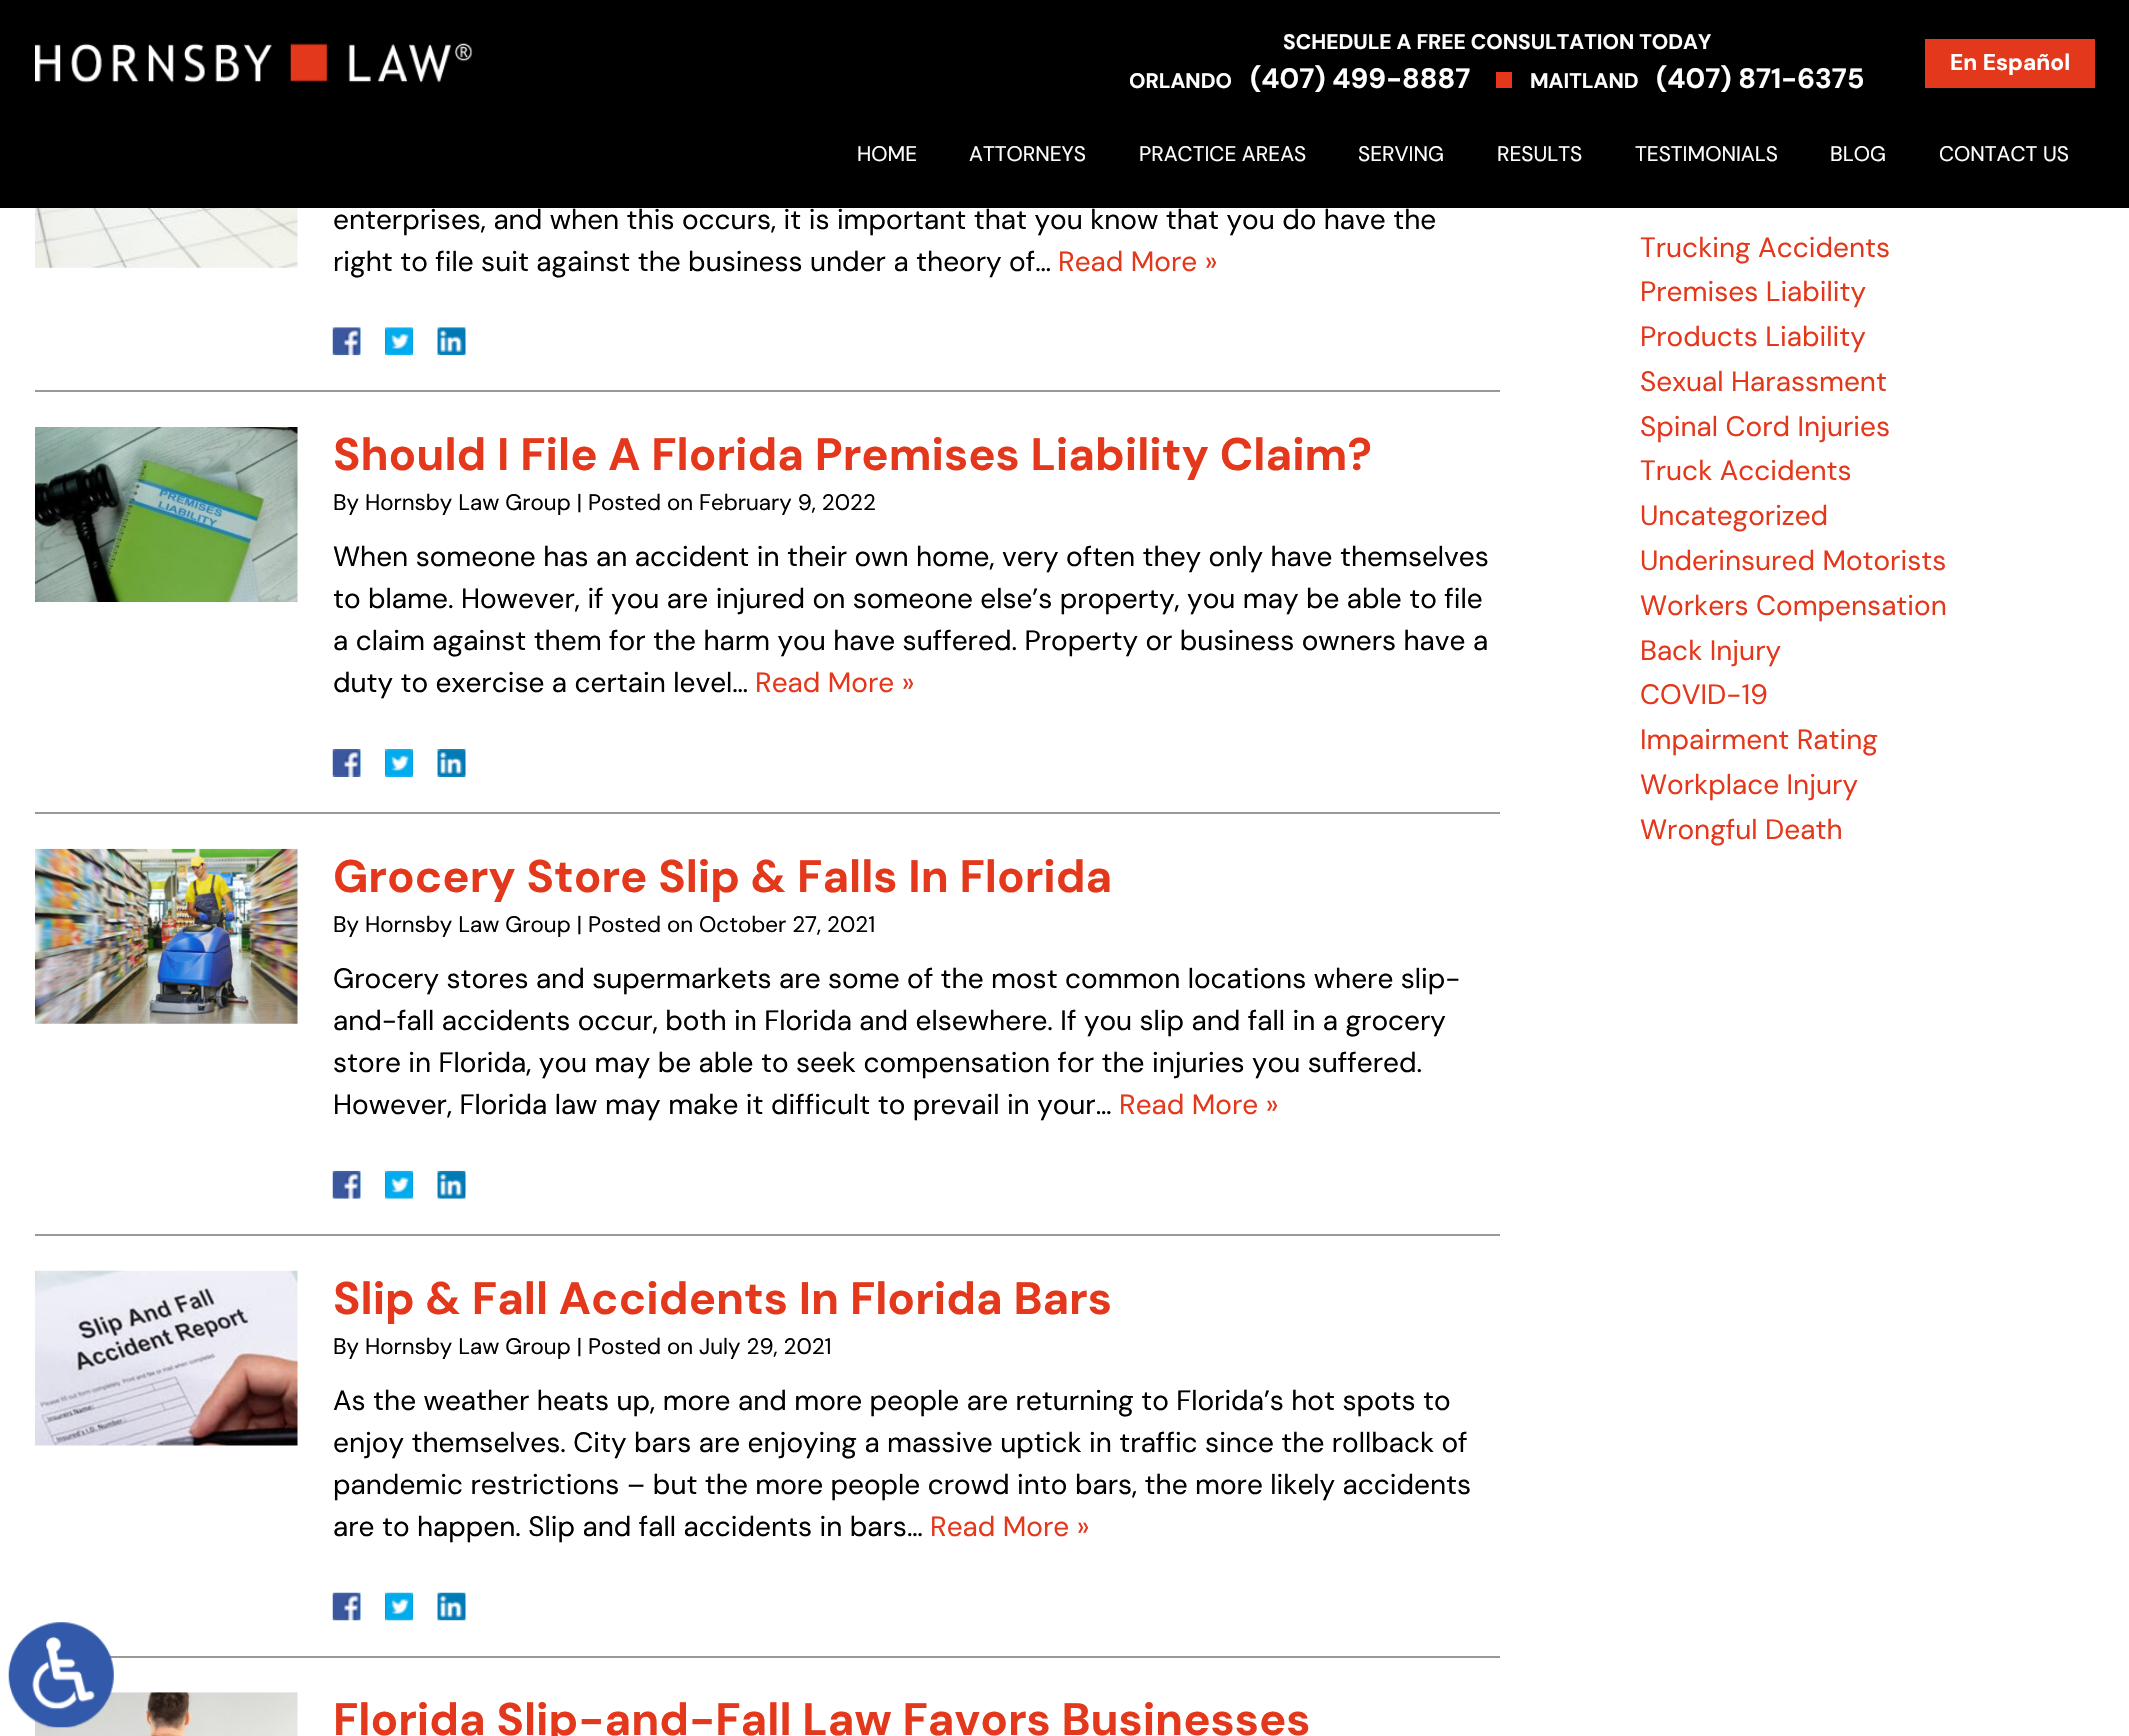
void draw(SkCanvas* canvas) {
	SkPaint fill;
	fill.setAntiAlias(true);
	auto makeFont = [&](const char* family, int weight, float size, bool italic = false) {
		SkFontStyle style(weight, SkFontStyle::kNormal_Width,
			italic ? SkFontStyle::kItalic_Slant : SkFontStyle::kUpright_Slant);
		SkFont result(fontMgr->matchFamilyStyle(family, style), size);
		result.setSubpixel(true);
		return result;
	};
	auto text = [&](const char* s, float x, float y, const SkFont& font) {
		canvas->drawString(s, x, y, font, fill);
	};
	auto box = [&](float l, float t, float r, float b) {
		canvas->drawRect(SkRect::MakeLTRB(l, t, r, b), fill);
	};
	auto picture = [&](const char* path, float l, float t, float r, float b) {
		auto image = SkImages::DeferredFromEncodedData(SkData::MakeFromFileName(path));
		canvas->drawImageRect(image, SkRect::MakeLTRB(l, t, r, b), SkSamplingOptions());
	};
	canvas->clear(0xFFFFFFFF);
	fill.setColor(0xFF999999);
	box(109, 1656, 1500, 1658);
	picture("image18.png", 35, 1692, 298, 1736);
	picture("image0.png", 8, 1622, 114, 1728);
	fill.setColor(0xFF000000);
	box(0, 0, 2129, 208);
	picture("image1.png", 35, 43, 473, 83);
	fill.setColor(0xFFE3381B);
	box(1496, 72, 1512, 88);
	box(1925, 39, 2095, 88);
	fill.setColor(0xFF999999);
	box(35, 390, 1500, 392);
	picture("image2.png", 35, 208, 298, 268);
	picture("image3.png", 332, 327, 361, 356);
	picture("image4.png", 385, 327, 413, 356);
	picture("image5.png", 437, 327, 466, 356);
	box(35, 812, 1500, 814);
	picture("image6.png", 35, 427, 298, 602);
	picture("image7.png", 332, 749, 361, 777);
	picture("image8.png", 385, 749, 413, 777);
	picture("image9.png", 437, 749, 466, 777);
	box(35, 1234, 1500, 1236);
	picture("image10.png", 35, 848, 298, 1024);
	picture("image11.png", 332, 1170, 361, 1199);
	picture("image12.png", 385, 1170, 413, 1199);
	picture("image13.png", 437, 1170, 466, 1199);
	picture("image14.png", 35, 1270, 298, 1446);
	picture("image15.png", 332, 1592, 361, 1621);
	picture("image16.png", 385, 1592, 413, 1621);
	picture("image17.png", 437, 1592, 466, 1621);
	auto font1 = makeFont("DM Sans", 700, 21);
	fill.setColor(0xFFFFFFFF);
	text("SCHEDULE A FREE CONSULTATION TODAY", 1283, 49, font1);
	text("ORLANDO", 1129, 88, font1);
	auto font2 = makeFont("DM Sans", 700, 28);
	text("(407) 499-8887", 1250, 88, font2);
	text("MAITLAND", 1530, 88, font1);
	text("(407) 871-6375", 1656, 88, font2);
	auto font3 = makeFont("DM Sans", 700, 22.75f);
	text("En Español", 1950, 70, font3);
	auto font4 = makeFont("DM Sans", 400, 21);
	text("HOME", 857, 161, font4);
	text("ATTORNEYS", 969, 161, font4);
	text("PRACTICE AREAS", 1139, 161, font4);
	text("SERVING", 1358, 161, font4);
	text("RESULTS", 1497, 161, font4);
	text("TESTIMONIALS", 1635, 161, font4);
	text("BLOG", 1830, 161, font4);
	text("CONTACT US", 1939, 161, font4);
	auto font5 = makeFont("DM Sans", 400, 28);
	fill.setColor(0xFF000000);
	text("enterprises, and when this occurs, it is important that you know that you do have the", 333, 229, font5);
	text("right to file suit against the business under a theory of…", 333, 271, font5);
	fill.setColor(0xFFE3381B);
	text("Read More »", 1058, 271, font5);
	auto font6 = makeFont("DM Sans", 700, 45.5f);
	text("Should I File A Florida Premises Liability Claim?", 333, 470, font6);
	auto font7 = makeFont("DM Sans", 400, 22.4f);
	fill.setColor(0xFF000000);
	text("By Hornsby Law Group | Posted on February 9, 2022", 333, 510, font7);
	text("When someone has an accident in their own home, very often they only have themselves", 333, 566, font5);
	text("to blame. However, if you are injured on someone else’s property, you may be able to file", 333, 608, font5);
	text("a claim against them for the harm you have suffered. Property or business owners have a", 333, 650, font5);
	text("duty to exercise a certain level…", 333, 692, font5);
	fill.setColor(0xFFE3381B);
	text("Read More »", 755, 692, font5);
	text("Grocery Store Slip & Falls In Florida", 333, 892, font6);
	fill.setColor(0xFF000000);
	text("By Hornsby Law Group | Posted on October 27, 2021", 333, 932, font7);
	text("Grocery stores and supermarkets are some of the most common locations where slip-", 333, 988, font5);
	text("and-fall accidents occur, both in Florida and elsewhere. If you slip and fall in a grocery", 333, 1030, font5);
	text("store in Florida, you may be able to seek compensation for the injuries you suffered.", 333, 1072, font5);
	text("However, Florida law may make it difficult to prevail in your…", 333, 1114, font5);
	fill.setColor(0xFFE3381B);
	text("Read More »", 1119, 1114, font5);
	text("Slip & Fall Accidents In Florida Bars", 333, 1314, font6);
	fill.setColor(0xFF000000);
	text("By Hornsby Law Group | Posted on July 29, 2021", 333, 1354, font7);
	text("As the weather heats up, more and more people are returning to Florida’s hot spots to", 333, 1410, font5);
	text("enjoy themselves. City bars are enjoying a massive uptick in traffic since the rollback of", 333, 1452, font5);
	text("pandemic restrictions – but the more people crowd into bars, the more likely accidents", 333, 1494, font5);
	text("are to happen. Slip and fall accidents in bars…", 333, 1536, font5);
	fill.setColor(0xFFE3381B);
	text("Read More »", 930, 1536, font5);
	text("Florida Slip-and-Fall Law Favors Businesses", 333, 1735, font6);
	text("Trucking Accidents", 1640, 257, font5);
	text("Premises Liability", 1640, 301, font5);
	text("Products Liability", 1640, 346, font5);
	text("Sexual Harassment", 1640, 391, font5);
	text("Spinal Cord Injuries", 1640, 436, font5);
	text("Truck Accidents", 1640, 480, font5);
	text("Uncategorized", 1640, 525, font5);
	text("Underinsured Motorists", 1640, 570, font5);
	text("Workers Compensation", 1640, 615, font5);
	text("Back Injury", 1640, 660, font5);
	text("COVID-19", 1640, 704, font5);
	text("Impairment Rating", 1640, 749, font5);
	text("Workplace Injury", 1640, 794, font5);
	text("Wrongful Death", 1640, 839, font5);
}
